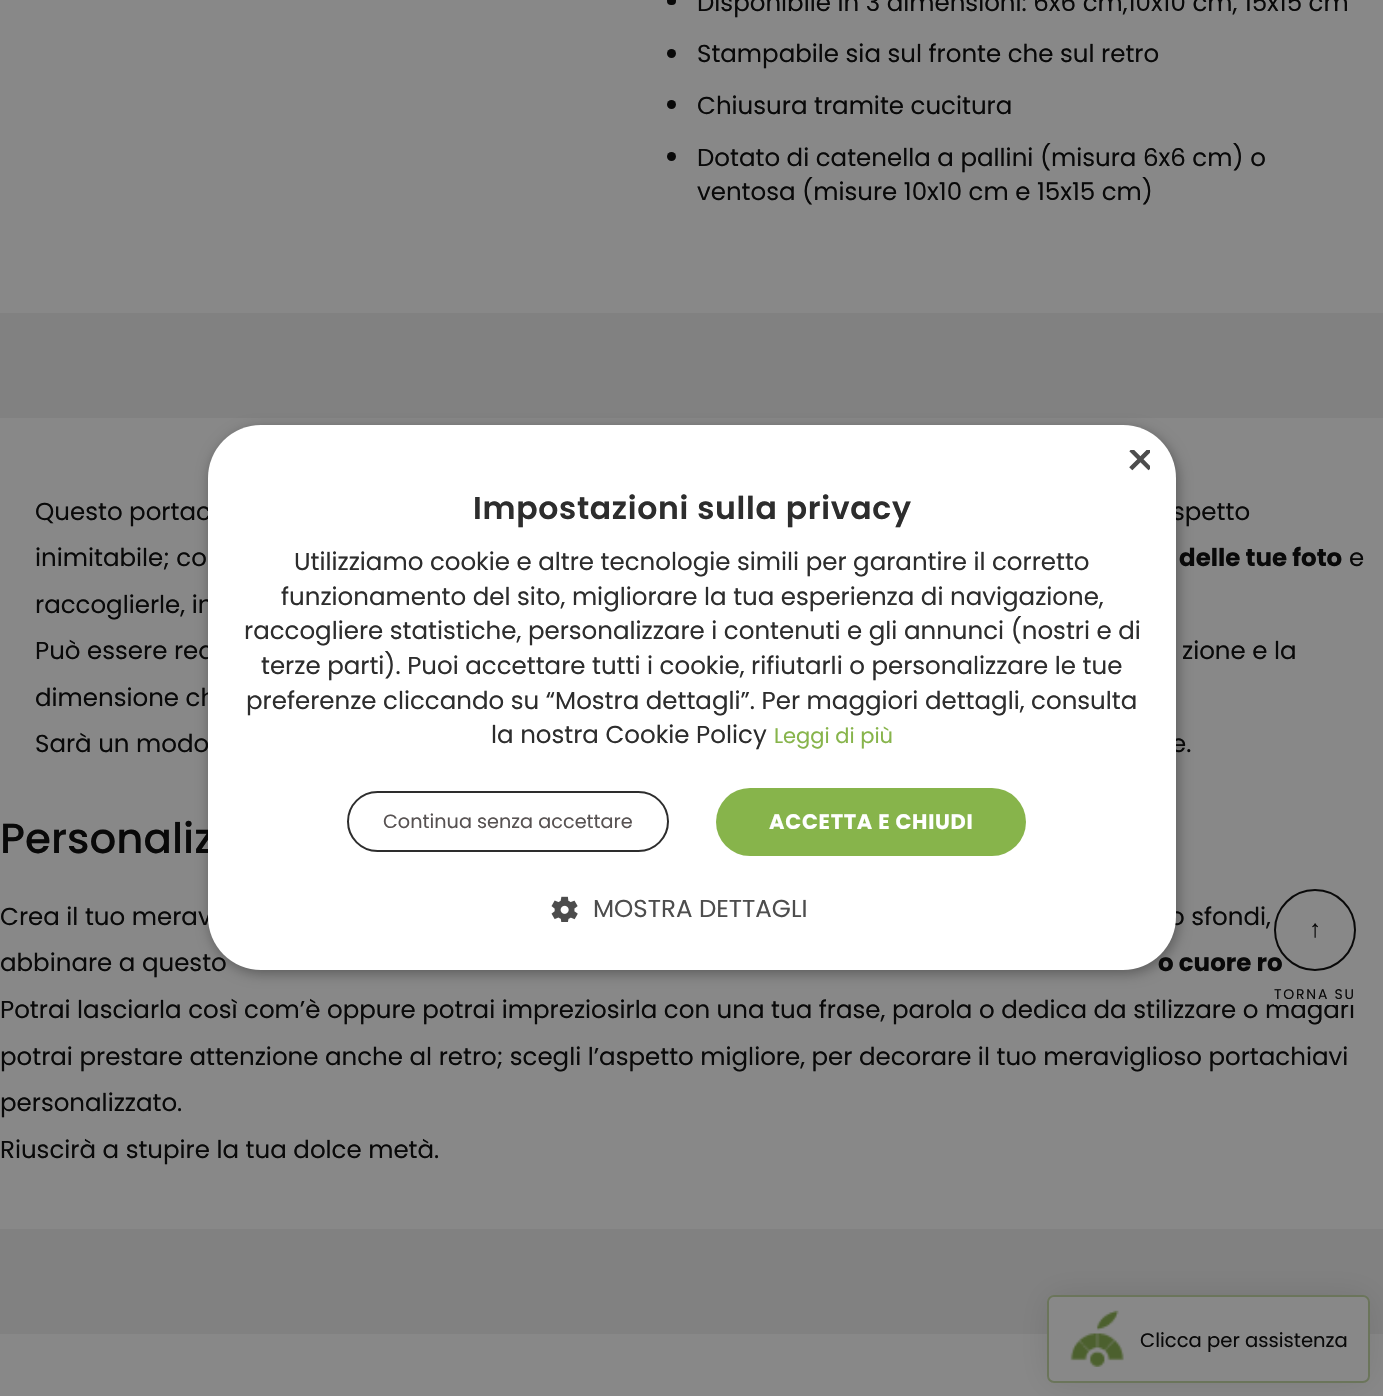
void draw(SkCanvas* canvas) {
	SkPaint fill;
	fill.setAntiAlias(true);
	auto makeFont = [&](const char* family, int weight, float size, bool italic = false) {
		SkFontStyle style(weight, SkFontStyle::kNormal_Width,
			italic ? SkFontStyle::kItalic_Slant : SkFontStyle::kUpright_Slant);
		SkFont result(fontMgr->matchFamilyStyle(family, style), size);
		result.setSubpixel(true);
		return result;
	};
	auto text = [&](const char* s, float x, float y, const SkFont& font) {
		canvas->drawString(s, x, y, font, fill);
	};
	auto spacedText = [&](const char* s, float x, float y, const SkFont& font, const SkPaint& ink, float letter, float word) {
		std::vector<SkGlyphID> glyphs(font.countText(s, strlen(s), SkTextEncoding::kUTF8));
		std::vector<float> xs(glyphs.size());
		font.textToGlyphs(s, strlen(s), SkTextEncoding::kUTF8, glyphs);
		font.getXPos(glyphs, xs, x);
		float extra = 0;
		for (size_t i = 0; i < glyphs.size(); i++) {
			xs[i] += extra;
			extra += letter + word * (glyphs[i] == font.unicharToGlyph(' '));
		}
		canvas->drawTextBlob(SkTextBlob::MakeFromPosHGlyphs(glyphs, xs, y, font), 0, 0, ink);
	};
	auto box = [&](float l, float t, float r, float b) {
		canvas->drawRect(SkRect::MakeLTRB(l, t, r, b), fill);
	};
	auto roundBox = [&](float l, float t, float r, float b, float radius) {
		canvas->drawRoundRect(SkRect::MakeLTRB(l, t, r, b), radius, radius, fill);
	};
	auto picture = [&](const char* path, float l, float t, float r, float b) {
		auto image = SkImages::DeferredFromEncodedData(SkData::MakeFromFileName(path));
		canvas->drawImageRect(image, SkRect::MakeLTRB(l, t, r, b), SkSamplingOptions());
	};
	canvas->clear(0xFF888888);
	fill.setColor(0xFF090909);
	roundBox(667, -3, 676, 5, 4);
	canvas->drawCircle(671.5f, 53.5f, 4.5f, fill);
	canvas->drawCircle(671.5f, 104.5f, 4.5f, fill);
	canvas->drawCircle(671.5f, 156.5f, 4.5f, fill);
	fill.setColor(0xFF818181);
	box(0, 313, 1383, 418);
	box(0, 1229, 1383, 1334);
	fill.setColor(0x59000000);
	fill.setMaskFilter(SkMaskFilter::MakeBlur(kNormal_SkBlurStyle, 7));
	canvas->drawRoundRect(SkRect::MakeLTRB(210, 429, 1178, 973), 53, 53, fill);
	fill.setMaskFilter(nullptr);
	fill.setStyle(SkPaint::kStroke_Style);
	fill.setStrokeWidth(2);
	fill.setColor(0xFF090909);
	canvas->drawCircle(1315, 930, 40, fill);
	fill.setStyle(SkPaint::kFill_Style);
	fill.setColor(0x1A090909);
	fill.setMaskFilter(SkMaskFilter::MakeBlur(kNormal_SkBlurStyle, 17.5f));
	canvas->drawRoundRect(SkRect::MakeLTRB(1047, 1295, 1370, 1383), 7, 7, fill);
	fill.setMaskFilter(nullptr);
	fill.setColor(0xFF888888);
	roundBox(1047, 1295, 1370, 1383, 7);
	fill.setStyle(SkPaint::kStroke_Style);
	fill.setColor(0x804D612E);
	canvas->drawRoundRect(SkRect::MakeLTRB(1048, 1296, 1369, 1382), 6, 6, fill);
	picture("image1.png", 1070, 1310, 1124, 1367);
	auto font1 = makeFont("Poppins", 400, 24.5f);
	fill.setStyle(SkPaint::kFill_Style);
	fill.setColor(0xFF090909);
	text("Disponibile in 3 dimensioni: 6x6 cm,10x10 cm, 15x15 cm", 697, 11, font1);
	text("Stampabile sia sul fronte che sul retro", 697, 62, font1);
	text("Chiusura tramite cucitura", 697, 114, font1);
	text("Dotato di catenella a pallini (misura 6x6 cm) o", 697, 166, font1);
	text("ventosa (misure 10x10 cm e 15x15 cm)", 697, 200, font1);
	text("Questo portac", 35, 520, font1);
	text("spetto", 1172, 520, font1);
	text("inimitabile; co", 35, 566, font1);
	auto font2 = makeFont("Poppins", 700, 24.5f);
	text("delle tue foto", 1179, 566, font2);
	text("e", 1349, 566, font1);
	text("raccoglierle, in", 35, 613, font1);
	text("Può essere rea", 35, 659, font1);
	text("zione e la", 1182, 659, font1);
	text("dimensione ch", 35, 706, font1);
	text("Sarà un modo", 35, 752, font1);
	text("e.", 1171, 752, font1);
	auto font3 = makeFont("Poppins", 500, 42);
	text("Personaliz", 0, 853, font3);
	text("Crea il tuo merav", 0, 925, font1);
	text("o sfondi,", 1169, 925, font1);
	text("abbinare a questo", 0, 971, font1);
	text("o cuore ro", 1158, 971, font2);
	text("Potrai lasciarla così com’è oppure potrai impreziosirla con una tua frase, parola o dedica da stilizzare o magari", 0, 1018, font1);
	text("potrai prestare attenzione anche al retro; scegli l’aspetto migliore, per decorare il tuo meraviglioso portachiavi", 0, 1065, font1);
	text("personalizzato.", 0, 1111, font1);
	text("Riuscirà a stupire la tua dolce metà.", 0, 1158, font1);
	fill.setColor(0xFFFFFFFF);
	roundBox(208, 425, 1176, 970, 53);
	canvas->save();
	canvas->clipRect(SkRect::MakeLTRB(1124, 450, 1150, 476));
	auto font4 = makeFont("Poppins", 400, 51);
	fill.setColor(0xFF4D4D4D);
	text("×", 1124, 478, font4);
	canvas->restore();
	auto font5 = makeFont("Poppins", 600, 31.5f);
	fill.setColor(0xFF2D2D2D);
	spacedText("Impostazioni sulla privacy", 473, 519, font5, fill, 0.7f, 0);
	text("Utilizziamo cookie e altre tecnologie simili per garantire il corretto", 294, 570, font1);
	text("funzionamento del sito, migliorare la tua esperienza di navigazione,", 281, 605, font1);
	text("raccogliere statistiche, personalizzare i contenuti e gli annunci (nostri e di", 244, 639, font1);
	text("terze parti). Puoi accettare tutti i cookie, rifiutarli o personalizzare le tue", 261, 674, font1);
	text("preferenze cliccando su “Mostra dettagli”. Per maggiori dettagli, consulta", 246, 709, font1);
	text("la nostra Cookie Policy", 491, 743, font1);
	auto font6 = makeFont("Poppins", 400, 21);
	fill.setColor(0xFF87B44B);
	text("Leggi di più", 774, 743, font6);
	fill.setStyle(SkPaint::kStroke_Style);
	fill.setColor(0xFF2D2D2D);
	canvas->drawRoundRect(SkRect::MakeLTRB(348, 792, 668, 851), 29.5f, 29.5f, fill);
	auto font7 = makeFont("Poppins", 400, 19.25f);
	fill.setStyle(SkPaint::kFill_Style);
	fill.setColor(0xFF575252);
	text("Continua senza accettare", 383, 828, font7);
	fill.setColor(0xFF87B44B);
	roundBox(716, 788, 1026, 856, 34);
	auto font8 = makeFont("Poppins", 700, 21);
	fill.setColor(0xFFFFFFFF);
	spacedText("ACCETTA E CHIUDI", 769, 829, font8, fill, 0.7f, 0);
	picture("image0.png", 551, 896, 578, 922);
	fill.setColor(0xFF4D4D4D);
	text("MOSTRA DETTAGLI", 593, 917, font1);
	auto font9 = makeFont("Liberation Sans", 400, 24.5f);
	fill.setColor(0xFF090909);
	text("↑", 1309, 937, font9);
	fill.setColor(0xFF888888);
	box(1274, 999, 1354, 1005);
	auto font10 = makeFont("Poppins", 400, 14);
	fill.setColor(0xFF090909);
	spacedText("TORNA SU", 1274, 999, font10, fill, 1.75f, 0);
	auto font11 = makeFont("Poppins", 400, 19.6f);
	text("Clicca per assistenza", 1140, 1347, font11);
}
